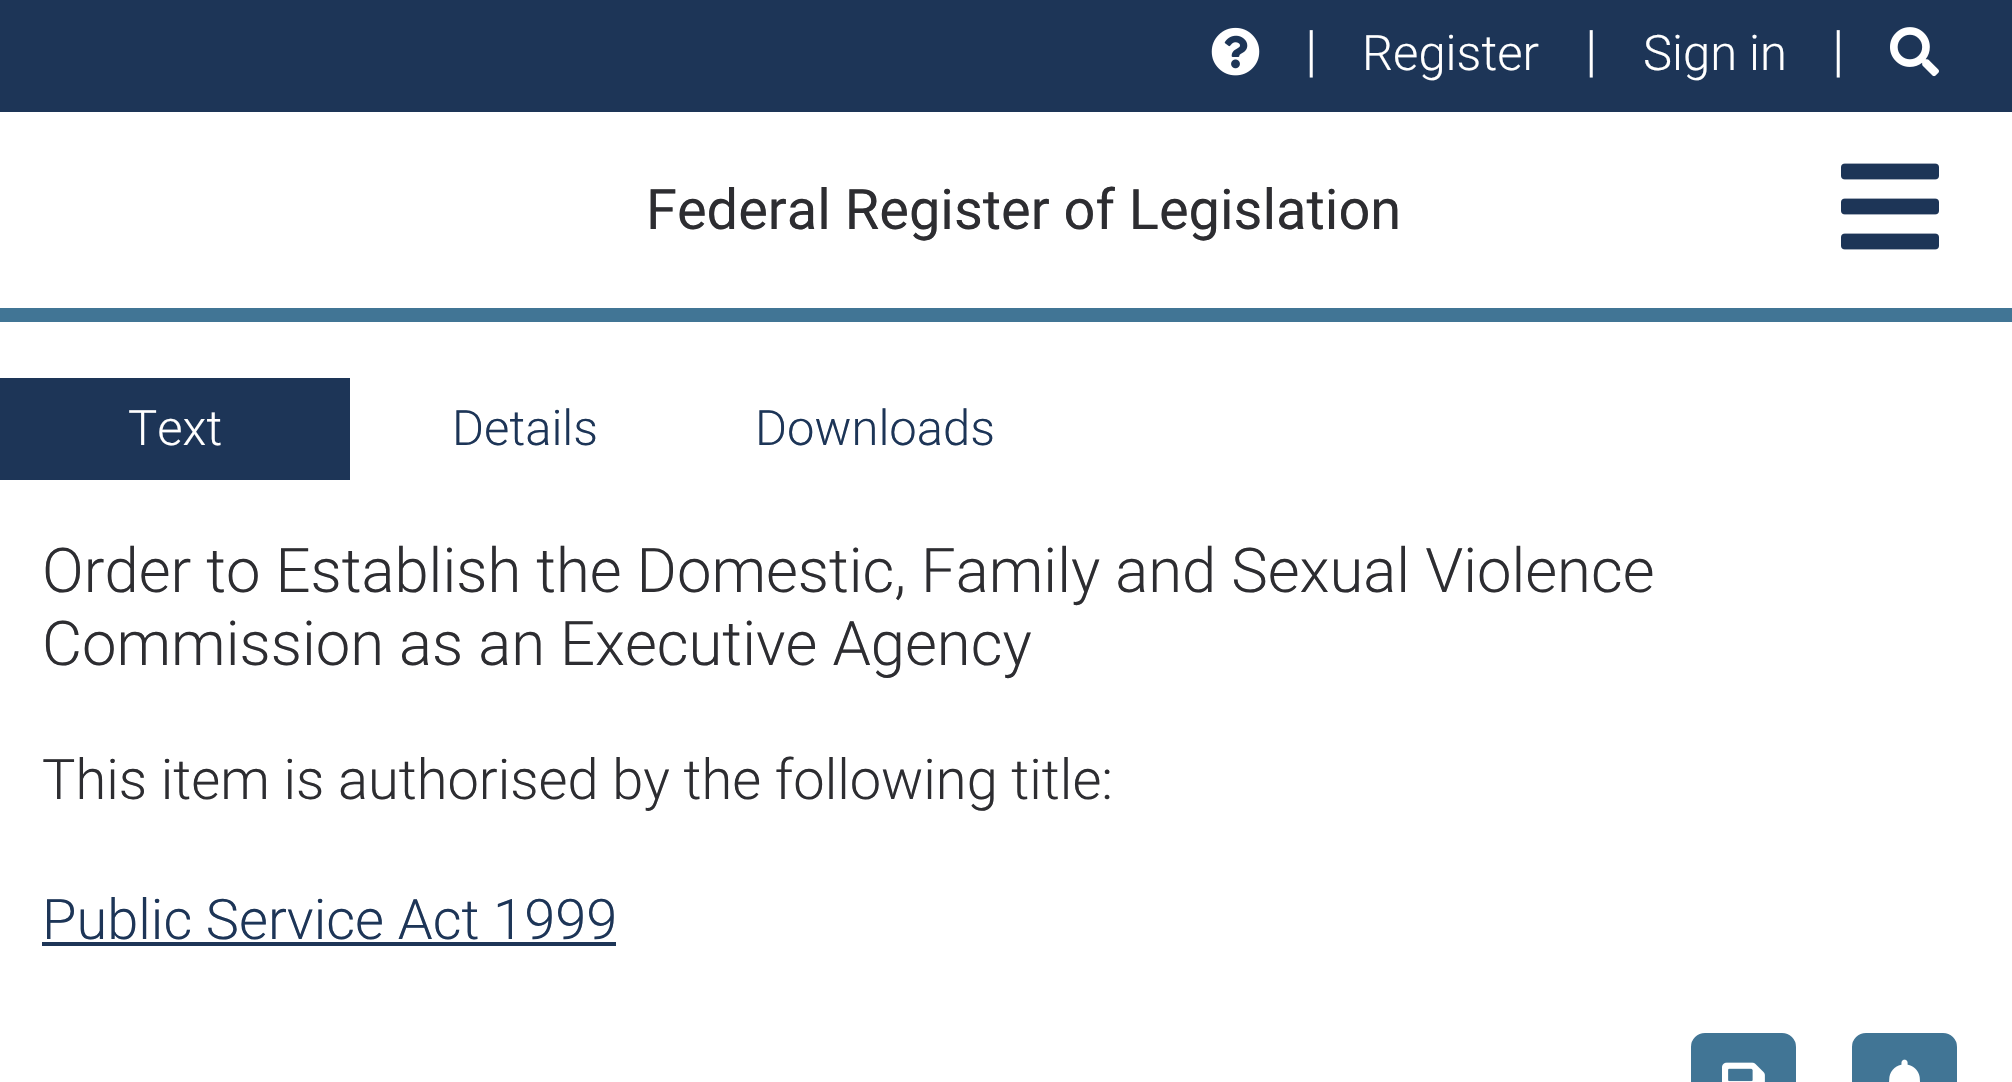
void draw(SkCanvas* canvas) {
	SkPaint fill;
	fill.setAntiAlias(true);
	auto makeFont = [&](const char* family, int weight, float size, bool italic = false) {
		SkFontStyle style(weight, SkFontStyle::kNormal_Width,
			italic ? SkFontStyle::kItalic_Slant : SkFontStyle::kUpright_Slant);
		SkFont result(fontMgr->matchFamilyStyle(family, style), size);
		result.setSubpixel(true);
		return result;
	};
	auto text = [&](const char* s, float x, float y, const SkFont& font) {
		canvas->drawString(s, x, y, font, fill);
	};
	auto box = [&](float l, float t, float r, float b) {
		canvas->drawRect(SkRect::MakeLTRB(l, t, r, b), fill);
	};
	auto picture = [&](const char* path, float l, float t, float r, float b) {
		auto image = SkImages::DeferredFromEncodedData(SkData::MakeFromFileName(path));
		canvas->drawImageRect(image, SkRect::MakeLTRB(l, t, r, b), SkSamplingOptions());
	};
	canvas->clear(0xFFFFFFFF);
	fill.setColor(0xFF417595);
	box(0, 308, 2012, 322);
	fill.setColor(0xFF1D3557);
	box(0, 0, 2012, 112);
	picture("image0.png", 1211, 27, 1260, 76);
	picture("image1.png", 1890, 27, 1939, 77);
	picture("image2.png", 1841, 163, 1939, 250);
	box(0, 378, 350, 480);
	box(42, 942, 616, 946);
	fill.setColor(0xFF417595);
	canvas->drawRoundRect(SkRect::MakeLTRB(1693, 1035, 1794, 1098), 12, 12, fill);
	fill.setStyle(SkPaint::kStroke_Style);
	fill.setStrokeWidth(4);
	canvas->drawRoundRect(SkRect::MakeLTRB(1693, 1035, 1794, 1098), 12, 12, fill);
	picture("image3.png", 1722, 1062, 1765, 1082);
	fill.setStyle(SkPaint::kFill_Style);
	canvas->drawRoundRect(SkRect::MakeLTRB(1854, 1035, 1955, 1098), 12, 12, fill);
	fill.setStyle(SkPaint::kStroke_Style);
	canvas->drawRoundRect(SkRect::MakeLTRB(1854, 1035, 1955, 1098), 12, 12, fill);
	picture("image4.png", 1889, 1059, 1920, 1082);
	auto font1 = makeFont("Roboto", 300, 56);
	fill.setStyle(SkPaint::kFill_Style);
	fill.setColor(0xFFFFFFFF);
	text("|", 1305, 70, font1);
	auto font2 = makeFont("Roboto", 300, 49);
	text("Register", 1362, 70, font2);
	text("|", 1585, 70, font1);
	text("Sign in", 1643, 70, font2);
	text("|", 1832, 70, font1);
	auto font3 = makeFont("Roboto", 400, 56);
	fill.setColor(0xFF2D2D31);
	text("Federal Register of Legislation", 646, 229, font3);
	fill.setColor(0xFFFFFFFF);
	text("Text", 128, 445, font2);
	fill.setColor(0xFF1D3557);
	text("Details", 452, 445, font2);
	text("Downloads", 755, 445, font2);
	auto font4 = makeFont("Roboto", 300, 61.6f);
	fill.setColor(0xFF2D2D31);
	text("Order to Establish the Domestic, Family and Sexual Violence", 42, 592, font4);
	text("Commission as an Executive Agency", 42, 665, font4);
	text("This item is authorised by the following title:", 42, 799, font1);
	fill.setColor(0xFF1D3557);
	text("Public Service Act 1999", 42, 939, font1);
}
